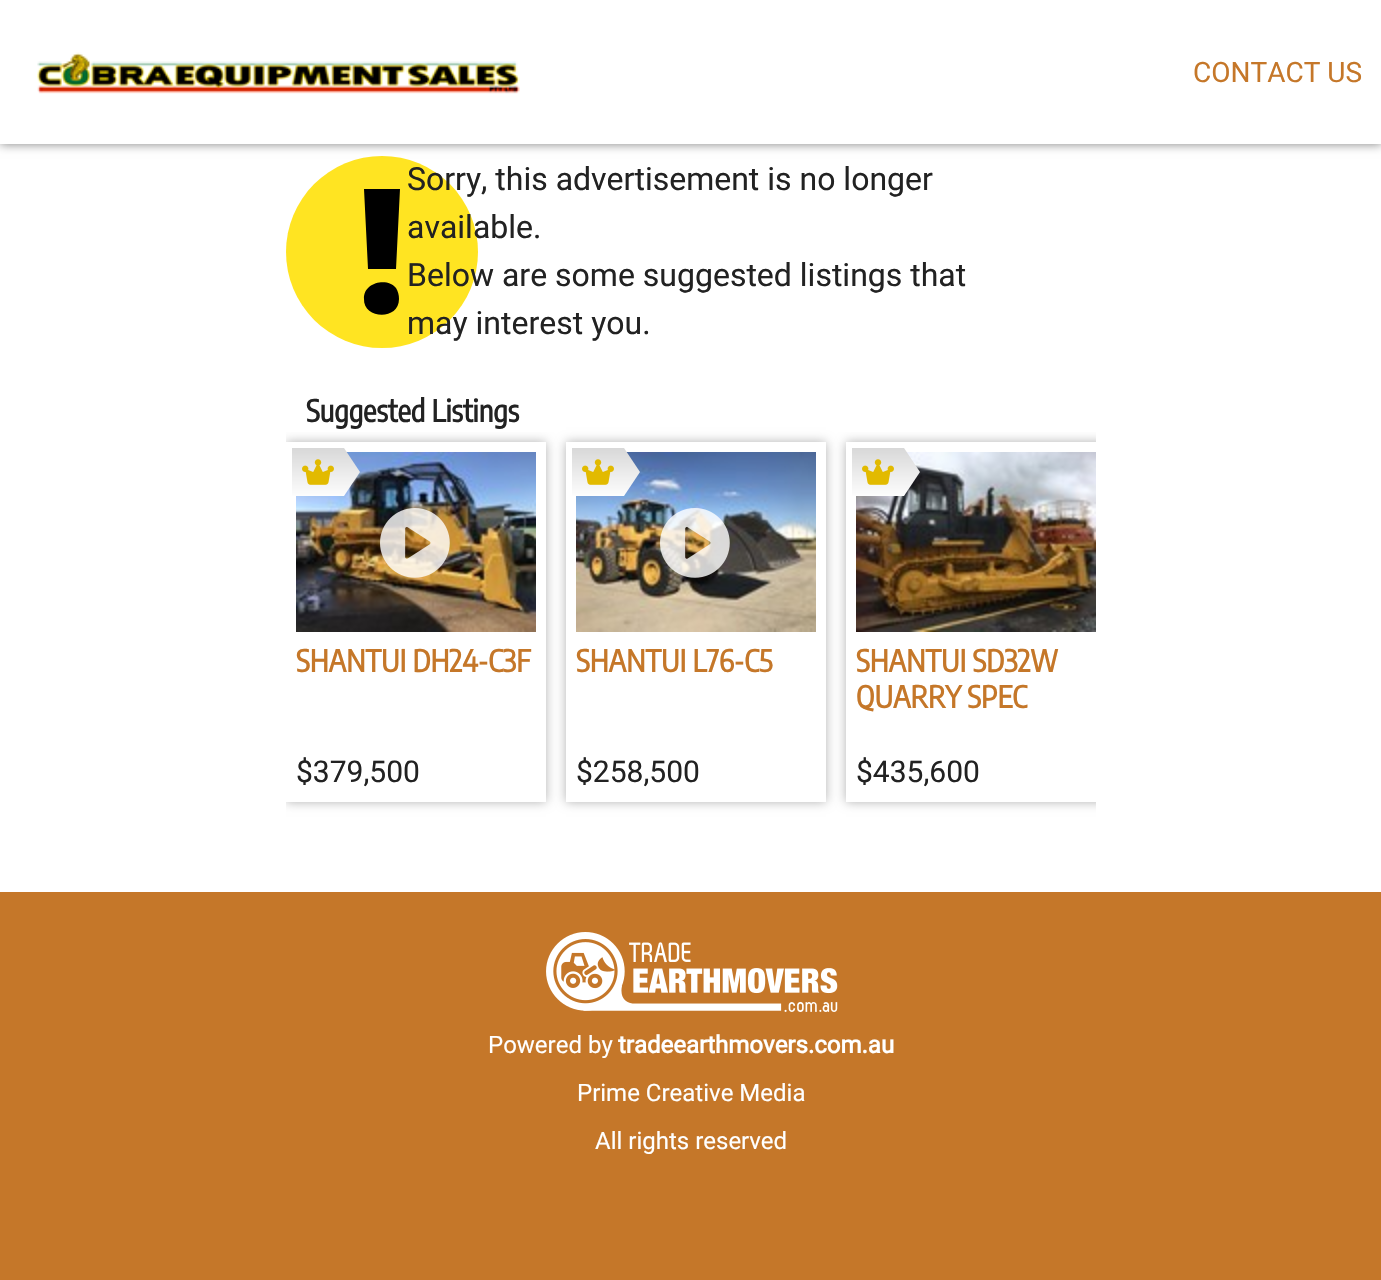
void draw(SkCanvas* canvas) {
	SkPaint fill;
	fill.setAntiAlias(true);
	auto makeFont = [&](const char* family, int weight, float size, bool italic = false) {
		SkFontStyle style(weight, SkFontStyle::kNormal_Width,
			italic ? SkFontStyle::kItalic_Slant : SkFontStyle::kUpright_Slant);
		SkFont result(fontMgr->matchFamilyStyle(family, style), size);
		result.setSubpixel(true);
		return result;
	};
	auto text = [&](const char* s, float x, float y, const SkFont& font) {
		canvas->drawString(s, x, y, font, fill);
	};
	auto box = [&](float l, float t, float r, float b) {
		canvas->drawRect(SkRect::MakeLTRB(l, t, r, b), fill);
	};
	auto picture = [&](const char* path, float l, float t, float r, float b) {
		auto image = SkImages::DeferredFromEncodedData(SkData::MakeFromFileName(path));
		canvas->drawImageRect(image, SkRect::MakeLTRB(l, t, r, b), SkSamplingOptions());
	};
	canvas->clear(0xFFFFFFFF);
	fill.setColor(0xFFFFE422);
	canvas->drawCircle(382, 252, 96, fill);
	fill.setColor(0x80000000);
	fill.setMaskFilter(SkMaskFilter::MakeBlur(kNormal_SkBlurStyle, 5));
	canvas->drawRect(SkRect::MakeLTRB(0, 0, 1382, 144), fill);
	fill.setMaskFilter(nullptr);
	fill.setColor(0xFFFFFFFF);
	box(0, 0, 1381, 144);
	picture("image0.png", 37, 52, 520, 94);
	fill.setColor(0xFF000000);
	canvas->drawPath(SkPathBuilder().moveTo(396, 269).lineTo(368, 269).lineTo(364, 189).lineTo(400, 189).close().moveTo(364, 299).cubicTo(363, 282, 388, 277, 396, 288).cubicTo(398, 291, 399, 295, 399, 299).cubicTo(399, 321, 363, 319, 364, 299).close().detach(), fill);
	canvas->save();
	canvas->clipRect(SkRect::MakeLTRB(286, 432, 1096, 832));
	canvas->clipPath(SkPathBuilder(SkPathFillType::kEvenOdd).moveTo(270, 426).lineTo(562, 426).lineTo(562, 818).lineTo(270, 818).close().moveTo(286, 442).lineTo(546, 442).lineTo(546, 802).lineTo(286, 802).close().detach(), true);
	fill.setColor(0x4D000000);
	fill.setMaskFilter(SkMaskFilter::MakeBlur(kNormal_SkBlurStyle, 5));
	canvas->drawRect(SkRect::MakeLTRB(286, 442, 546, 802), fill);
	fill.setMaskFilter(nullptr);
	canvas->restore();
	picture("image2.png", 296, 452, 536, 632);
	{
		const SkColor colors[] = {0xFFD8D8D8, 0xFFFDFDFD};
		const float stops[] = {0, 1};
		const SkPoint ends[] = {{292, 448}, {292, 496}};
		fill.setShader(SkGradientShader::MakeLinear(ends, colors, stops, 2, SkTileMode::kClamp));
		fill.setAlpha(255);
	}
	canvas->drawPath(SkPathBuilder().moveTo(292, 448).lineTo(292, 496).lineTo(344, 496).lineTo(360, 472).lineTo(344, 448).close().detach(), fill);
	picture("image1.png", 302, 459, 334, 485);
	picture("image3.png", 380, 508, 450, 578);
	canvas->save();
	canvas->clipPath(SkPathBuilder(SkPathFillType::kEvenOdd).moveTo(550, 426).lineTo(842, 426).lineTo(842, 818).lineTo(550, 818).close().moveTo(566, 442).lineTo(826, 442).lineTo(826, 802).lineTo(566, 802).close().detach(), true);
	fill.setShader(nullptr);
	fill.setColor(0x4D000000);
	fill.setMaskFilter(SkMaskFilter::MakeBlur(kNormal_SkBlurStyle, 5));
	canvas->drawRect(SkRect::MakeLTRB(566, 442, 826, 802), fill);
	fill.setMaskFilter(nullptr);
	canvas->restore();
	picture("image4.png", 576, 452, 816, 632);
	{
		const SkColor colors[] = {0xFFD8D8D8, 0xFFFDFDFD};
		const float stops[] = {0, 1};
		const SkPoint ends[] = {{572, 448}, {572, 496}};
		fill.setShader(SkGradientShader::MakeLinear(ends, colors, stops, 2, SkTileMode::kClamp));
		fill.setAlpha(255);
	}
	canvas->drawPath(SkPathBuilder().moveTo(572, 448).lineTo(572, 496).lineTo(624, 496).lineTo(640, 472).lineTo(624, 448).close().detach(), fill);
	picture("image1.png", 582, 459, 614, 485);
	picture("image5.png", 660, 508, 730, 578);
	canvas->save();
	canvas->clipRect(SkRect::MakeLTRB(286, 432, 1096, 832));
	canvas->clipPath(SkPathBuilder(SkPathFillType::kEvenOdd).moveTo(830, 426).lineTo(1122, 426).lineTo(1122, 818).lineTo(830, 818).close().moveTo(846, 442).lineTo(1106, 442).lineTo(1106, 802).lineTo(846, 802).close().detach(), true);
	fill.setShader(nullptr);
	fill.setColor(0x4D000000);
	fill.setMaskFilter(SkMaskFilter::MakeBlur(kNormal_SkBlurStyle, 5));
	canvas->drawRect(SkRect::MakeLTRB(846, 442, 1106, 802), fill);
	fill.setMaskFilter(nullptr);
	canvas->restore();
	picture("image6.png", 856, 452, 1096, 632);
	{
		const SkColor colors[] = {0xFFD8D8D8, 0xFFFDFDFD};
		const float stops[] = {0, 1};
		const SkPoint ends[] = {{852, 448}, {852, 496}};
		fill.setShader(SkGradientShader::MakeLinear(ends, colors, stops, 2, SkTileMode::kClamp));
		fill.setAlpha(255);
	}
	canvas->drawPath(SkPathBuilder().moveTo(852, 448).lineTo(852, 496).lineTo(904, 496).lineTo(920, 472).lineTo(904, 448).close().detach(), fill);
	picture("image1.png", 862, 459, 894, 485);
	fill.setShader(nullptr);
	fill.setColor(0xFFC57729);
	box(0, 892, 1381, 1280);
	picture("image7.png", 546, 932, 838, 1012);
	auto font1 = makeFont("Roboto", 400, 28);
	text("CONTACT US", 1193, 82, font1);
	auto font2 = makeFont("Roboto", 400, 32);
	fill.setColor(0xFF222222);
	text("Sorry, this advertisement is no longer", 407, 190, font2);
	text("available.", 407, 238, font2);
	text("Below are some suggested listings that", 407, 286, font2);
	text("may interest you.", 407, 334, font2);
	auto font3 = makeFont("Encode Sans Condensed", 700, 30);
	text("Suggested Listings", 306, 422, font3);
	fill.setColor(0xFFC57729);
	text("SHANTUI DH24-C3F", 296, 672, font3);
	auto font4 = makeFont("Roboto", 400, 30);
	fill.setColor(0xFF222222);
	text("$379,500", 296, 782, font4);
	fill.setColor(0xFFC57729);
	text("SHANTUI L76-C5", 576, 672, font3);
	fill.setColor(0xFF222222);
	text("$258,500", 576, 782, font4);
	fill.setColor(0xFFC57729);
	text("SHANTUI SD32W", 856, 672, font3);
	text("QUARRY SPEC", 856, 708, font3);
	fill.setColor(0xFF222222);
	text("$435,600", 856, 782, font4);
	auto font5 = makeFont("Roboto", 400, 24);
	fill.setColor(0xFFFFFFFF);
	text("Powered by", 488, 1053, font5);
	auto font6 = makeFont("Roboto", 700, 24);
	text("tradeearthmovers.com.au", 618, 1053, font6);
	text("Prime Creative Media", 577, 1101, font5);
	text("All rights reserved", 595, 1149, font5);
}
